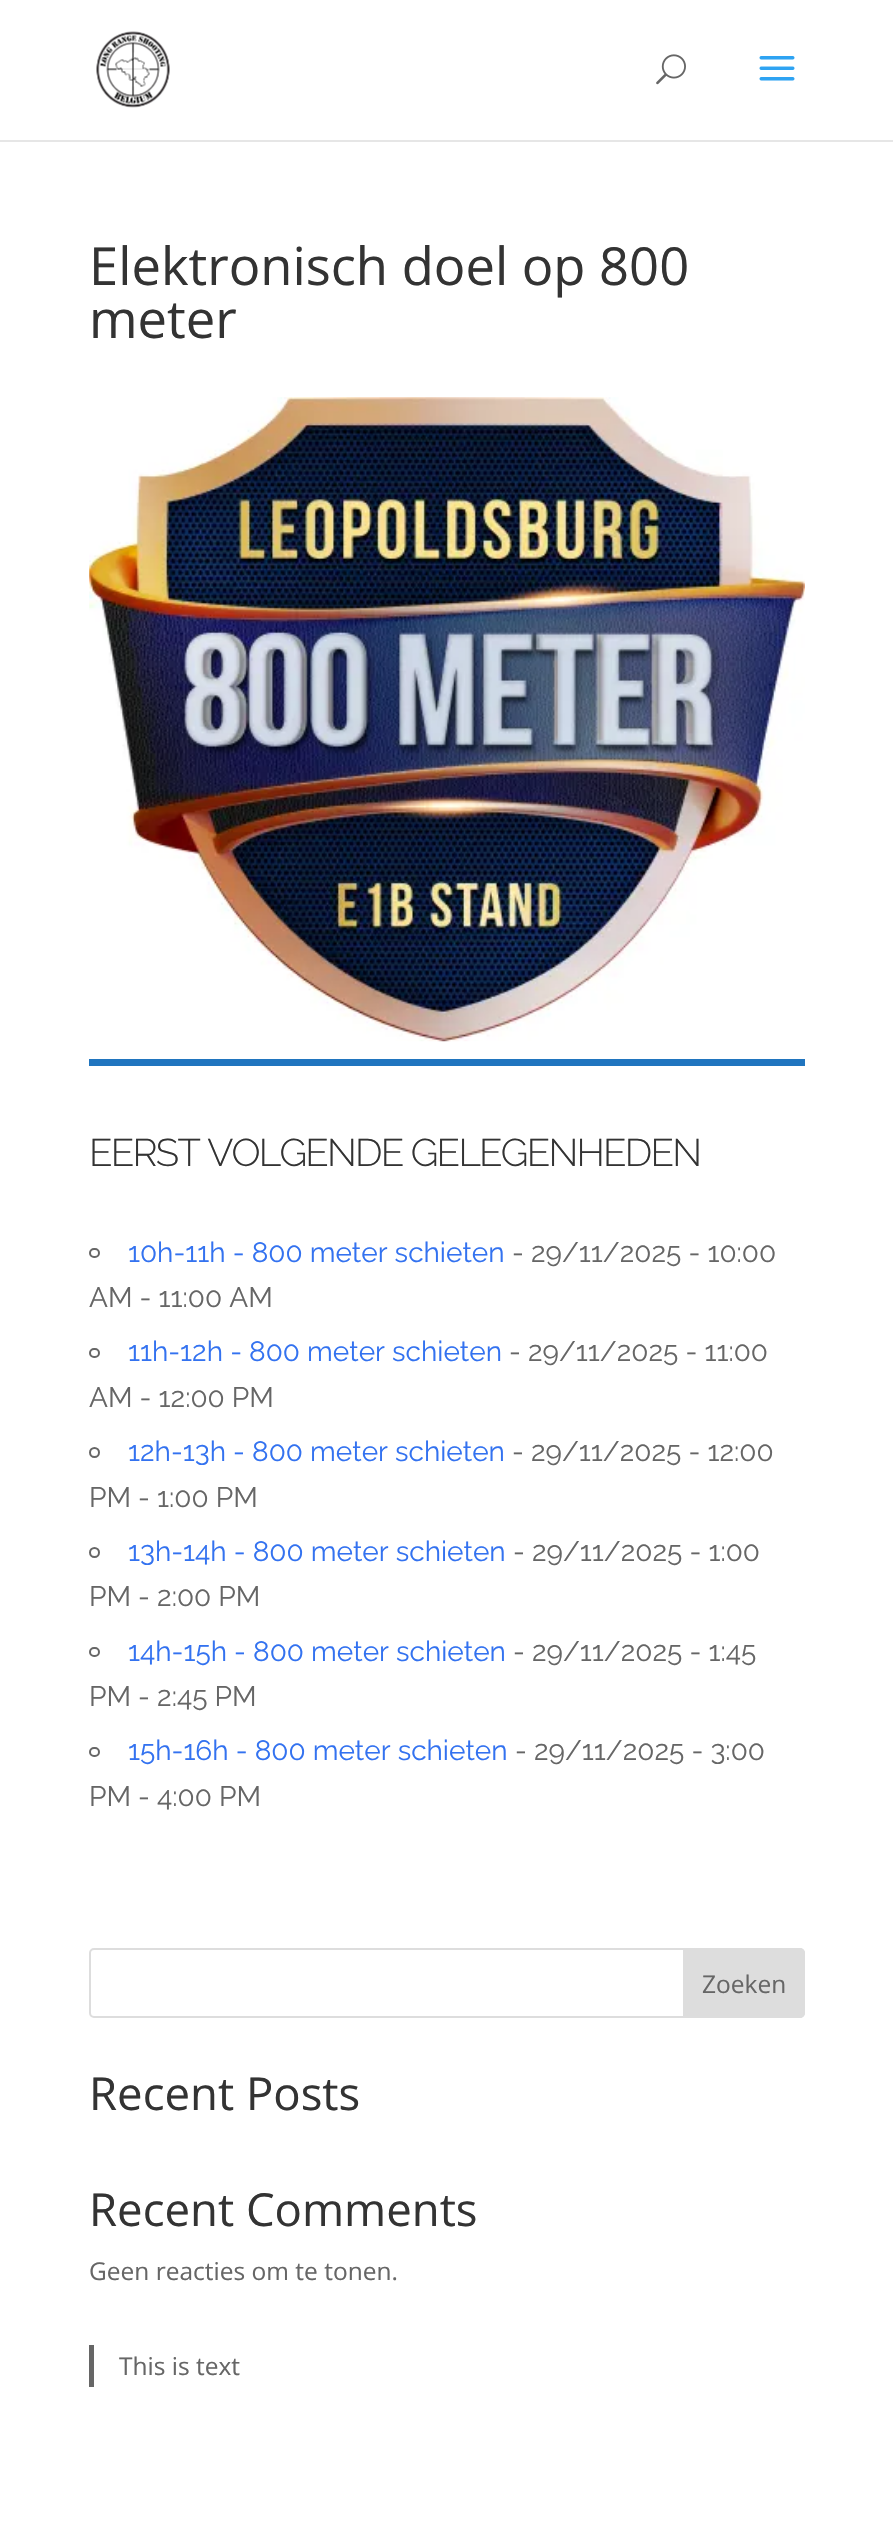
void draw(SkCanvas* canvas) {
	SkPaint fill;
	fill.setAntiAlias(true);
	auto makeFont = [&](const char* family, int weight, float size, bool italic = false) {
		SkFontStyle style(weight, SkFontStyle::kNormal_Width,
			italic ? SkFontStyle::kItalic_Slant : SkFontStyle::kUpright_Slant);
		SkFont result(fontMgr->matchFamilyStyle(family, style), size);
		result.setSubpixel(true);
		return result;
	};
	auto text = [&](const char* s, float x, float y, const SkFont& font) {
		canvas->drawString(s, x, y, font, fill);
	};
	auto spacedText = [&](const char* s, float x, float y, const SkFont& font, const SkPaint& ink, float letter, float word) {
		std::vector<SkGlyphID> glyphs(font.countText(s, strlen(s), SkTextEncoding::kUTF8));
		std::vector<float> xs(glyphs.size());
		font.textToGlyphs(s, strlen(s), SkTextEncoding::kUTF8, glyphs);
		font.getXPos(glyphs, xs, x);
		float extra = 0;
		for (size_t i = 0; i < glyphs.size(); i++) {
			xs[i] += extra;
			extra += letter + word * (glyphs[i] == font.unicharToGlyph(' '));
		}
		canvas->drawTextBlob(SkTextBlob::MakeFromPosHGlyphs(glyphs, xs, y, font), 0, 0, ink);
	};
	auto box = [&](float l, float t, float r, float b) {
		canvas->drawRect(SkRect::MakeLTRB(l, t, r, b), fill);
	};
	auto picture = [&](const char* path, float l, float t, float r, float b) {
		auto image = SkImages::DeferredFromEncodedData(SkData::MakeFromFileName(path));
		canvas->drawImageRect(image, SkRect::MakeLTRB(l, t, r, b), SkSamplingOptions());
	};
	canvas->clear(0xFFFFFFFF);
	fill.setColor(0xFFE6E6E6);
	box(0, 140, 893, 142);
	picture("image0.png", 96, 31, 170, 108);
	picture("image1.png", 656, 54, 686, 85);
	picture("image2.png", 759, 56, 795, 81);
	picture("image3.png", 89, 397, 805, 1042);
	fill.setColor(0xFF2075BF);
	box(89, 1059, 805, 1066);
	fill.setStyle(SkPaint::kStroke_Style);
	fill.setStrokeWidth(2);
	fill.setColor(0xFF666666);
	canvas->drawRoundRect(SkRect::MakeLTRB(90, 1249, 99, 1257), 4, 4, fill);
	canvas->drawRoundRect(SkRect::MakeLTRB(90, 1349, 99, 1357), 4, 4, fill);
	canvas->drawCircle(94.5f, 1452.5f, 4.5f, fill);
	canvas->drawCircle(94.5f, 1552.5f, 4.5f, fill);
	canvas->drawRoundRect(SkRect::MakeLTRB(90, 1648, 99, 1656), 4, 4, fill);
	canvas->drawRoundRect(SkRect::MakeLTRB(90, 1748, 99, 1756), 4, 4, fill);
	fill.setColor(0xFFDDDDDD);
	canvas->drawRoundRect(SkRect::MakeLTRB(90, 1949, 804, 2017), 4, 4, fill);
	fill.setStyle(SkPaint::kFill_Style);
	canvas->drawPath(SkPathBuilder().moveTo(684, 1949).lineTo(800, 1949).cubicTo(802, 1949, 804, 1951, 804, 1953).lineTo(804, 2013).cubicTo(804, 2015, 802, 2017, 800, 2017).lineTo(684, 2017).close().detach(), fill);
	fill.setStyle(SkPaint::kStroke_Style);
	canvas->drawPath(SkPathBuilder().moveTo(684, 1949).lineTo(800, 1949).cubicTo(802, 1949, 804, 1951, 804, 1953).lineTo(804, 2013).cubicTo(804, 2015, 802, 2017, 800, 2017).lineTo(684, 2017).close().detach(), fill);
	fill.setStyle(SkPaint::kFill_Style);
	fill.setColor(0xFF666666);
	box(89, 2345, 94, 2387);
	auto font1 = makeFont("Open Sans", 400, 52.5f);
	fill.setColor(0xFF333333);
	text("Elektronisch doel op 800", 89, 285, font1);
	text("meter", 89, 338, font1);
	auto font2 = makeFont("Raleway", 300, 38.5f);
	spacedText("EERST VOLGENDE GELEGENHEDEN", 89, 1166, font2, fill, -1.75f, 0);
	auto font3 = makeFont("Raleway", 400, 28);
	fill.setColor(0xFF3372F0);
	text("10h-11h - 800 meter schieten", 128, 1262, font3);
	fill.setColor(0xFF666666);
	text("- 29/11/2025 - 10:00", 512, 1262, font3);
	text("AM - 11:00 AM", 89, 1307, font3);
	fill.setColor(0xFF3372F0);
	text("11h-12h - 800 meter schieten", 128, 1361, font3);
	fill.setColor(0xFF666666);
	text("- 29/11/2025 - 11:00", 509, 1361, font3);
	text("AM - 12:00 PM", 89, 1407, font3);
	fill.setColor(0xFF3372F0);
	text("12h-13h - 800 meter schieten", 128, 1461, font3);
	fill.setColor(0xFF666666);
	text("- 29/11/2025 - 12:00", 512, 1461, font3);
	text("PM - 1:00 PM", 89, 1507, font3);
	fill.setColor(0xFF3372F0);
	text("13h-14h - 800 meter schieten", 128, 1561, font3);
	fill.setColor(0xFF666666);
	text("- 29/11/2025 - 1:00", 513, 1561, font3);
	text("PM - 2:00 PM", 89, 1606, font3);
	fill.setColor(0xFF3372F0);
	text("14h-15h - 800 meter schieten", 128, 1661, font3);
	fill.setColor(0xFF666666);
	text("- 29/11/2025 - 1:45", 513, 1661, font3);
	text("PM - 2:45 PM", 89, 1706, font3);
	fill.setColor(0xFF3372F0);
	text("15h-16h - 800 meter schieten", 128, 1760, font3);
	fill.setColor(0xFF666666);
	text("- 29/11/2025 - 3:00", 515, 1760, font3);
	text("PM - 4:00 PM", 89, 1806, font3);
	auto font4 = makeFont("Open Sans", 400, 24.5f);
	text("Zoeken", 702, 1993, font4);
	auto font5 = makeFont("Open Sans", 400, 45.5f);
	fill.setColor(0xFF333333);
	text("Recent Posts", 89, 2110, font5);
	text("Recent Comments", 89, 2226, font5);
	fill.setColor(0xFF666666);
	text("Geen reacties om te tonen.", 89, 2280, font4);
	text("This is text", 119, 2375, font4);
}
